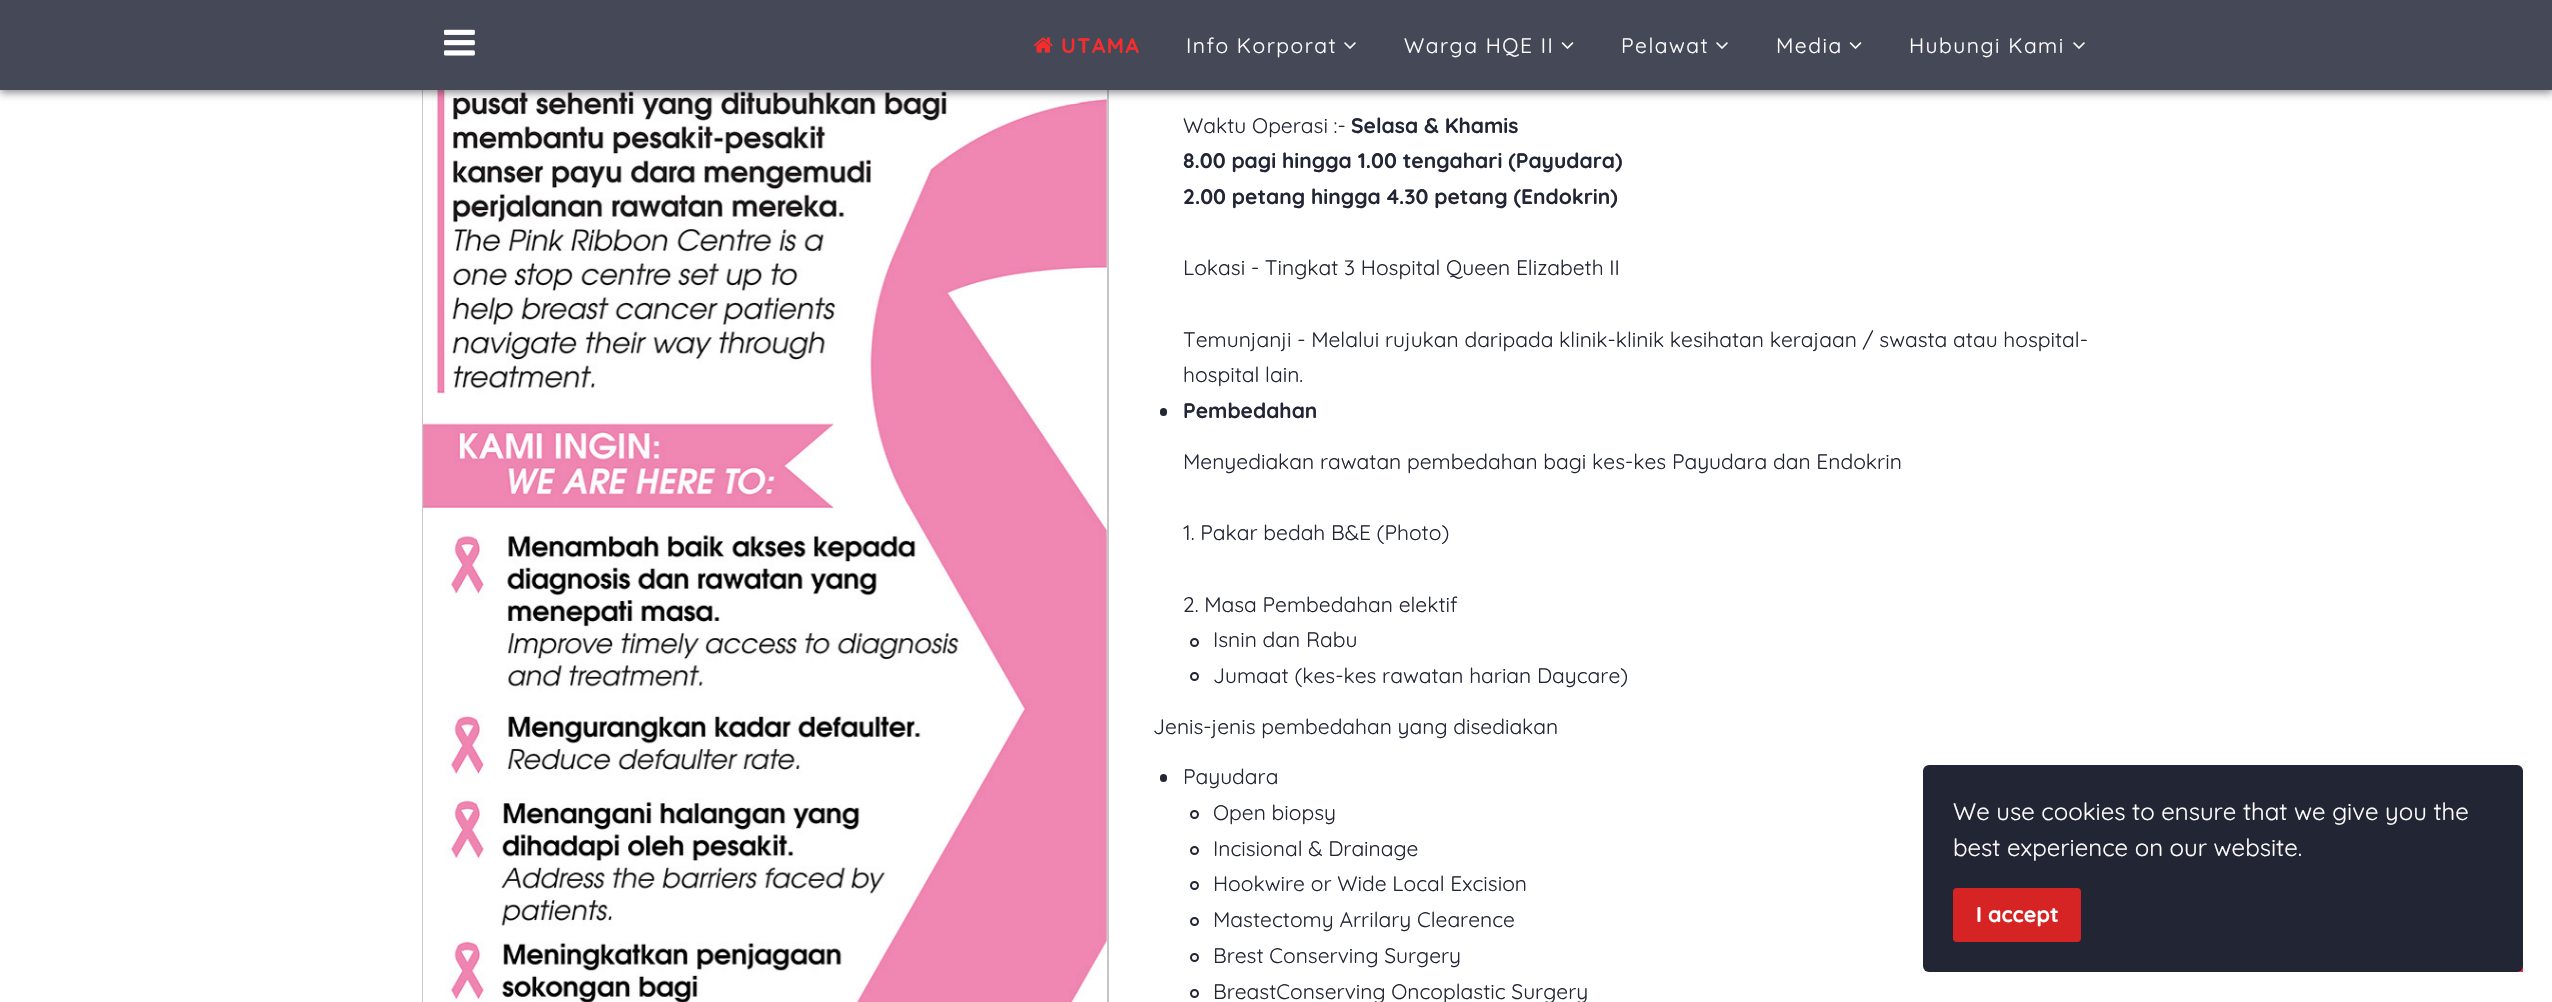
void draw(SkCanvas* canvas) {
	SkPaint fill;
	fill.setAntiAlias(true);
	auto makeFont = [&](const char* family, int weight, float size, bool italic = false) {
		SkFontStyle style(weight, SkFontStyle::kNormal_Width,
			italic ? SkFontStyle::kItalic_Slant : SkFontStyle::kUpright_Slant);
		SkFont result(fontMgr->matchFamilyStyle(family, style), size);
		result.setSubpixel(true);
		return result;
	};
	auto text = [&](const char* s, float x, float y, const SkFont& font) {
		canvas->drawString(s, x, y, font, fill);
	};
	auto spacedText = [&](const char* s, float x, float y, const SkFont& font, const SkPaint& ink, float letter, float word) {
		std::vector<SkGlyphID> glyphs(font.countText(s, strlen(s), SkTextEncoding::kUTF8));
		std::vector<float> xs(glyphs.size());
		font.textToGlyphs(s, strlen(s), SkTextEncoding::kUTF8, glyphs);
		font.getXPos(glyphs, xs, x);
		float extra = 0;
		for (size_t i = 0; i < glyphs.size(); i++) {
			xs[i] += extra;
			extra += letter + word * (glyphs[i] == font.unicharToGlyph(' '));
		}
		canvas->drawTextBlob(SkTextBlob::MakeFromPosHGlyphs(glyphs, xs, y, font), 0, 0, ink);
	};
	auto box = [&](float l, float t, float r, float b) {
		canvas->drawRect(SkRect::MakeLTRB(l, t, r, b), fill);
	};
	auto roundBox = [&](float l, float t, float r, float b, float radius) {
		canvas->drawRoundRect(SkRect::MakeLTRB(l, t, r, b), radius, radius, fill);
	};
	auto picture = [&](const char* path, float l, float t, float r, float b) {
		auto image = SkImages::DeferredFromEncodedData(SkData::MakeFromFileName(path));
		canvas->drawImageRect(image, SkRect::MakeLTRB(l, t, r, b), SkSamplingOptions());
	};
	canvas->clear(0xFFFFFFFF);
	fill.setStyle(SkPaint::kStroke_Style);
	fill.setStrokeWidth(2);
	fill.setColor(0xFFC6C6C6);
	canvas->drawRect(SkRect::MakeLTRB(423, -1, 1108, 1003), fill);
	picture("image4.png", 423, 90, 1107, 1002);
	fill.setStyle(SkPaint::kFill_Style);
	fill.setColor(0x6E000000);
	fill.setMaskFilter(SkMaskFilter::MakeBlur(kNormal_SkBlurStyle, 4));
	canvas->drawRect(SkRect::MakeLTRB(0, 3, 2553, 93), fill);
	fill.setMaskFilter(nullptr);
	fill.setColor(0xFF454857);
	box(0, 0, 2552, 90);
	picture("image0.png", 444, 29, 475, 56);
	picture("image1.png", 1033, 37, 1053, 53);
	picture("image2.png", 1344, 42, 1356, 49);
	picture("image3.png", 1561, 42, 1574, 49);
	picture("image2.png", 1716, 42, 1728, 49);
	picture("image3.png", 1849, 42, 1862, 49);
	picture("image2.png", 2073, 42, 2085, 49);
	fill.setColor(0xFF222533);
	roundBox(1160, 408, 1167, 416, 3.5f);
	fill.setStyle(SkPaint::kStroke_Style);
	canvas->drawCircle(1194.5f, 642.5f, 3.5f, fill);
	canvas->drawCircle(1194.5f, 676.5f, 3.5f, fill);
	fill.setStyle(SkPaint::kFill_Style);
	roundBox(1160, 774, 1167, 782, 3.5f);
	fill.setStyle(SkPaint::kStroke_Style);
	canvas->drawCircle(1194.5f, 814.5f, 3.5f, fill);
	canvas->drawCircle(1194.5f, 850.5f, 3.5f, fill);
	canvas->drawCircle(1194.5f, 885.5f, 3.5f, fill);
	canvas->drawCircle(1194.5f, 921.5f, 3.5f, fill);
	canvas->drawCircle(1194.5f, 957.5f, 3.5f, fill);
	canvas->drawCircle(1194.5f, 993.5f, 3.5f, fill);
	fill.setStyle(SkPaint::kFill_Style);
	fill.setColor(0xFFF72D2D);
	box(2517, 966, 2523, 972);
	fill.setColor(0xFF222533);
	roundBox(1923, 765, 2523, 972, 6);
	fill.setColor(0xFFD62424);
	roundBox(1953, 888, 2081, 942, 4);
	auto font1 = makeFont("Quicksand", 700, 21);
	fill.setColor(0xFFF72D2D);
	spacedText("UTAMA", 1061, 53, font1, fill, 1.5f, 0);
	auto font2 = makeFont("Quicksand", 400, 21);
	fill.setColor(0xFFFFFFFF);
	spacedText("Info Korporat", 1186, 53, font2, fill, 1.5f, 0);
	spacedText("Warga HQE II", 1404, 53, font2, fill, 1.5f, 0);
	spacedText("Pelawat", 1621, 53, font2, fill, 1.5f, 0);
	spacedText("Media", 1776, 53, font2, fill, 1.5f, 0);
	spacedText("Hubungi Kami", 1909, 53, font2, fill, 1.5f, 0);
	fill.setColor(0xFF222533);
	text("Waktu Operasi :-", 1183, 133, font2);
	text("Selasa & Khamis", 1351, 133, font1);
	text("8.00 pagi hingga 1.00 tengahari (Payudara)", 1183, 168, font1);
	text("2.00 petang hingga 4.30 petang (Endokrin)", 1183, 204, font1);
	text("Lokasi - Tingkat 3 Hospital Queen Elizabeth II", 1183, 275, font2);
	text("Temunjanji - Melalui rujukan daripada klinik-klinik kesihatan kerajaan / swasta atau hospital-", 1183, 347, font2);
	text("hospital lain.", 1183, 382, font2);
	text("Pembedahan", 1183, 418, font1);
	text("Menyediakan rawatan pembedahan bagi kes-kes Payudara dan Endokrin", 1183, 469, font2);
	text("1. Pakar bedah B&E (Photo)", 1183, 540, font2);
	text("2. Masa Pembedahan elektif", 1183, 612, font2);
	text("Isnin dan Rabu", 1213, 647, font2);
	text("Jumaat (kes-kes rawatan harian Daycare)", 1213, 683, font2);
	text("Jenis-jenis pembedahan yang disediakan", 1153, 734, font2);
	text("Payudara", 1183, 784, font2);
	text("Open biopsy", 1213, 820, font2);
	text("Incisional & Drainage", 1213, 856, font2);
	text("Hookwire or Wide Local Excision", 1213, 891, font2);
	text("Mastectomy Arrilary Clearence", 1213, 927, font2);
	text("Brest Conserving Surgery", 1213, 963, font2);
	text("BreastConserving Oncoplastic Surgery", 1213, 999, font2);
	auto font3 = makeFont("Quicksand", 400, 24);
	fill.setColor(0xFFFFFFFF);
	text("We use cookies to ensure that we give you the", 1953, 820, font3);
	text("best experience on our website.", 1953, 856, font3);
	auto font4 = makeFont("Quicksand", 700, 21.5f);
	text("I accept", 1976, 922, font4);
}
